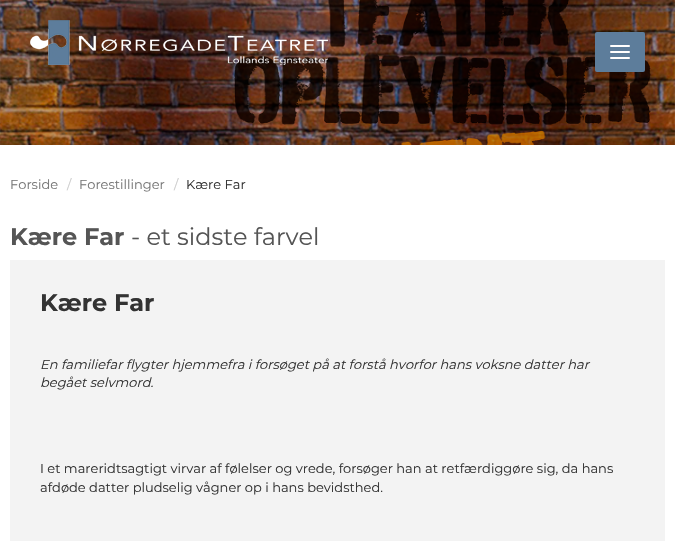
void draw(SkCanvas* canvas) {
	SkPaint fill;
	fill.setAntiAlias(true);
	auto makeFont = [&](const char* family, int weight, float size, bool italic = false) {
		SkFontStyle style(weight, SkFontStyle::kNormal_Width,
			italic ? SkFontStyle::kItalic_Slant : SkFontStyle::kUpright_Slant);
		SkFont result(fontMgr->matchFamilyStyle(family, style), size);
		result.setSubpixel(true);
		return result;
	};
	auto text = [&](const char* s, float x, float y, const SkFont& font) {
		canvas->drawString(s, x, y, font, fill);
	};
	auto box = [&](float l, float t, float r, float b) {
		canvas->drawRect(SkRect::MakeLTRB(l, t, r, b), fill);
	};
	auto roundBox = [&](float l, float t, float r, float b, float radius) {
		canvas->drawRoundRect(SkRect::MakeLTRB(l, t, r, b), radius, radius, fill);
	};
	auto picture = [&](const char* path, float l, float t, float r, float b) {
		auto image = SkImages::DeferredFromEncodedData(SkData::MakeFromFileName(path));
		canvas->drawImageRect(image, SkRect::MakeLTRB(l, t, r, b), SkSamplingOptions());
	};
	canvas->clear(0xFFFFFFFF);
	picture("image0.png", 0, 0, 675, 145);
	picture("image1.png", 30, 20, 328, 65);
	fill.setColor(0xFF333333);
	box(643, 32, 645, 34);
	fill.setColor(0xFF5D7D9B);
	roundBox(595, 32, 645, 72, 2);
	fill.setColor(0xFFFFFFFF);
	roundBox(610, 51, 630, 53, 1);
	roundBox(610, 45, 630, 47, 1);
	roundBox(610, 57, 630, 59, 1);
	fill.setColor(0xFFF3F3F3);
	box(10, 260, 665, 541);
	auto font1 = makeFont("Montserrat", 400, 13);
	fill.setColor(0xFF777777);
	text("Forside", 10, 189, font1);
	fill.setColor(0xFFCCCCCC);
	text("/", 67, 189, font1);
	fill.setColor(0xFF777777);
	text("Forestillinger", 79, 189, font1);
	fill.setColor(0xFFCCCCCC);
	text("/", 174, 189, font1);
	fill.setColor(0xFF333333);
	text("Kære Far", 186, 189, font1);
	auto font2 = makeFont("Montserrat", 700, 24);
	fill.setColor(0xFF555555);
	text("Kære Far", 10, 245, font2);
	auto font3 = makeFont("Montserrat", 400, 24);
	text("- et sidste farvel", 131, 245, font3);
	fill.setColor(0xFF333333);
	text("Kære Far", 40, 311, font2);
	auto font4 = makeFont("Montserrat", 400, 13, true);
	text("En familiefar flygter hjemmefra i forsøget på at forstå hvorfor hans voksne datter har", 40, 369, font4);
	text("begået selvmord.", 40, 387, font4);
	text("I et mareridtsagtigt virvar af følelser og vrede, forsøger han at retfærdiggøre sig, da hans", 40, 473, font1);
	text("afdøde datter pludselig vågner op i hans bevidsthed.", 40, 492, font1);
}
